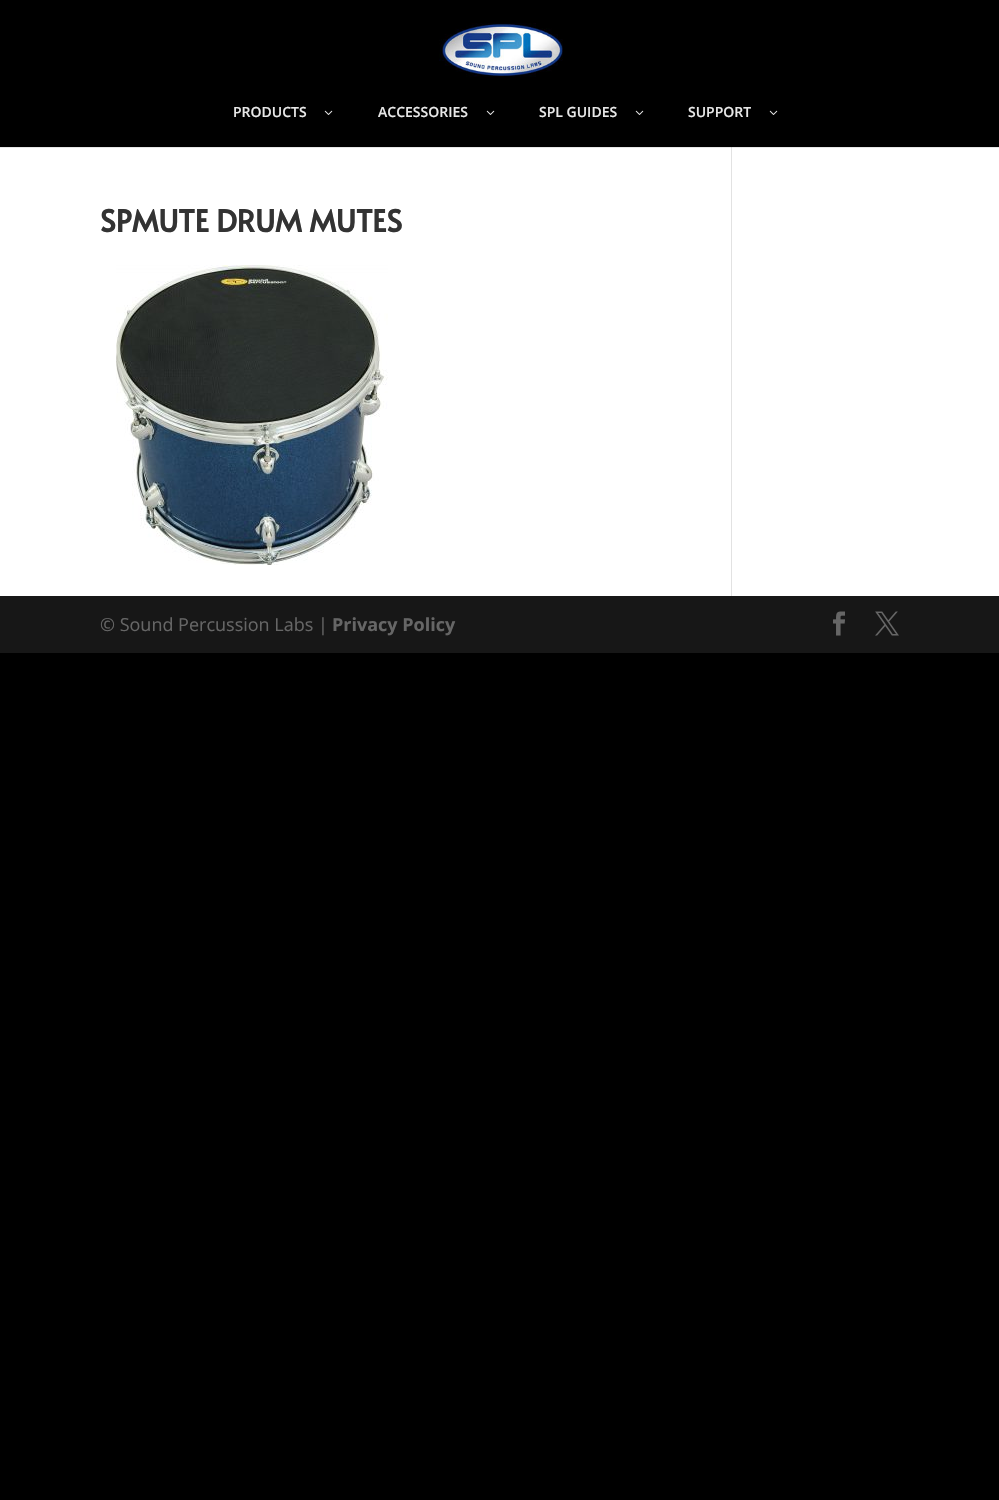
void draw(SkCanvas* canvas) {
	SkPaint fill;
	fill.setAntiAlias(true);
	auto makeFont = [&](const char* family, int weight, float size, bool italic = false) {
		SkFontStyle style(weight, SkFontStyle::kNormal_Width,
			italic ? SkFontStyle::kItalic_Slant : SkFontStyle::kUpright_Slant);
		SkFont result(fontMgr->matchFamilyStyle(family, style), size);
		result.setSubpixel(true);
		return result;
	};
	auto text = [&](const char* s, float x, float y, const SkFont& font) {
		canvas->drawString(s, x, y, font, fill);
	};
	auto box = [&](float l, float t, float r, float b) {
		canvas->drawRect(SkRect::MakeLTRB(l, t, r, b), fill);
	};
	auto picture = [&](const char* path, float l, float t, float r, float b) {
		auto image = SkImages::DeferredFromEncodedData(SkData::MakeFromFileName(path));
		canvas->drawImageRect(image, SkRect::MakeLTRB(l, t, r, b), SkSamplingOptions());
	};
	canvas->clear(0xFF000000);
	picture("image0.png", 439, 23, 563, 77);
	picture("image1.png", 324, 110, 333, 115);
	picture("image1.png", 486, 110, 495, 115);
	picture("image1.png", 635, 110, 644, 115);
	picture("image1.png", 769, 110, 778, 115);
	fill.setColor(0xFFFFFFFF);
	box(0, 148, 999, 596);
	fill.setColor(0xFFE6E6E6);
	box(0, 147, 999, 148);
	picture("image2.png", 116, 265, 388, 565);
	fill.setColor(0xFFE2E2E2);
	box(731, 147, 732, 596);
	fill.setColor(0xFFCBCBCB);
	box(731, 147, 732, 148);
	fill.setColor(0xFF171717);
	box(0, 596, 999, 653);
	picture("image3.png", 833, 611, 845, 636);
	picture("image4.png", 875, 611, 899, 636);
	auto font1 = makeFont("Open Sans", 600, 14);
	fill.setColor(0xFFE8E8E8);
	text("PRODUCTS", 233, 117, font1);
	text("ACCESSORIES", 378, 117, font1);
	text("SPL GUIDES", 539, 117, font1);
	text("SUPPORT", 688, 117, font1);
	auto font2 = makeFont("Alata", 700, 30);
	fill.setColor(0xFF333333);
	text("SPMUTE DRUM MUTES", 100, 232, font2);
	auto font3 = makeFont("Open Sans", 400, 18);
	fill.setColor(0xFF666666);
	text("© Sound Percussion Labs |", 100, 631, font3);
	auto font4 = makeFont("Open Sans", 700, 18);
	text("Privacy Policy", 332, 631, font4);
}
